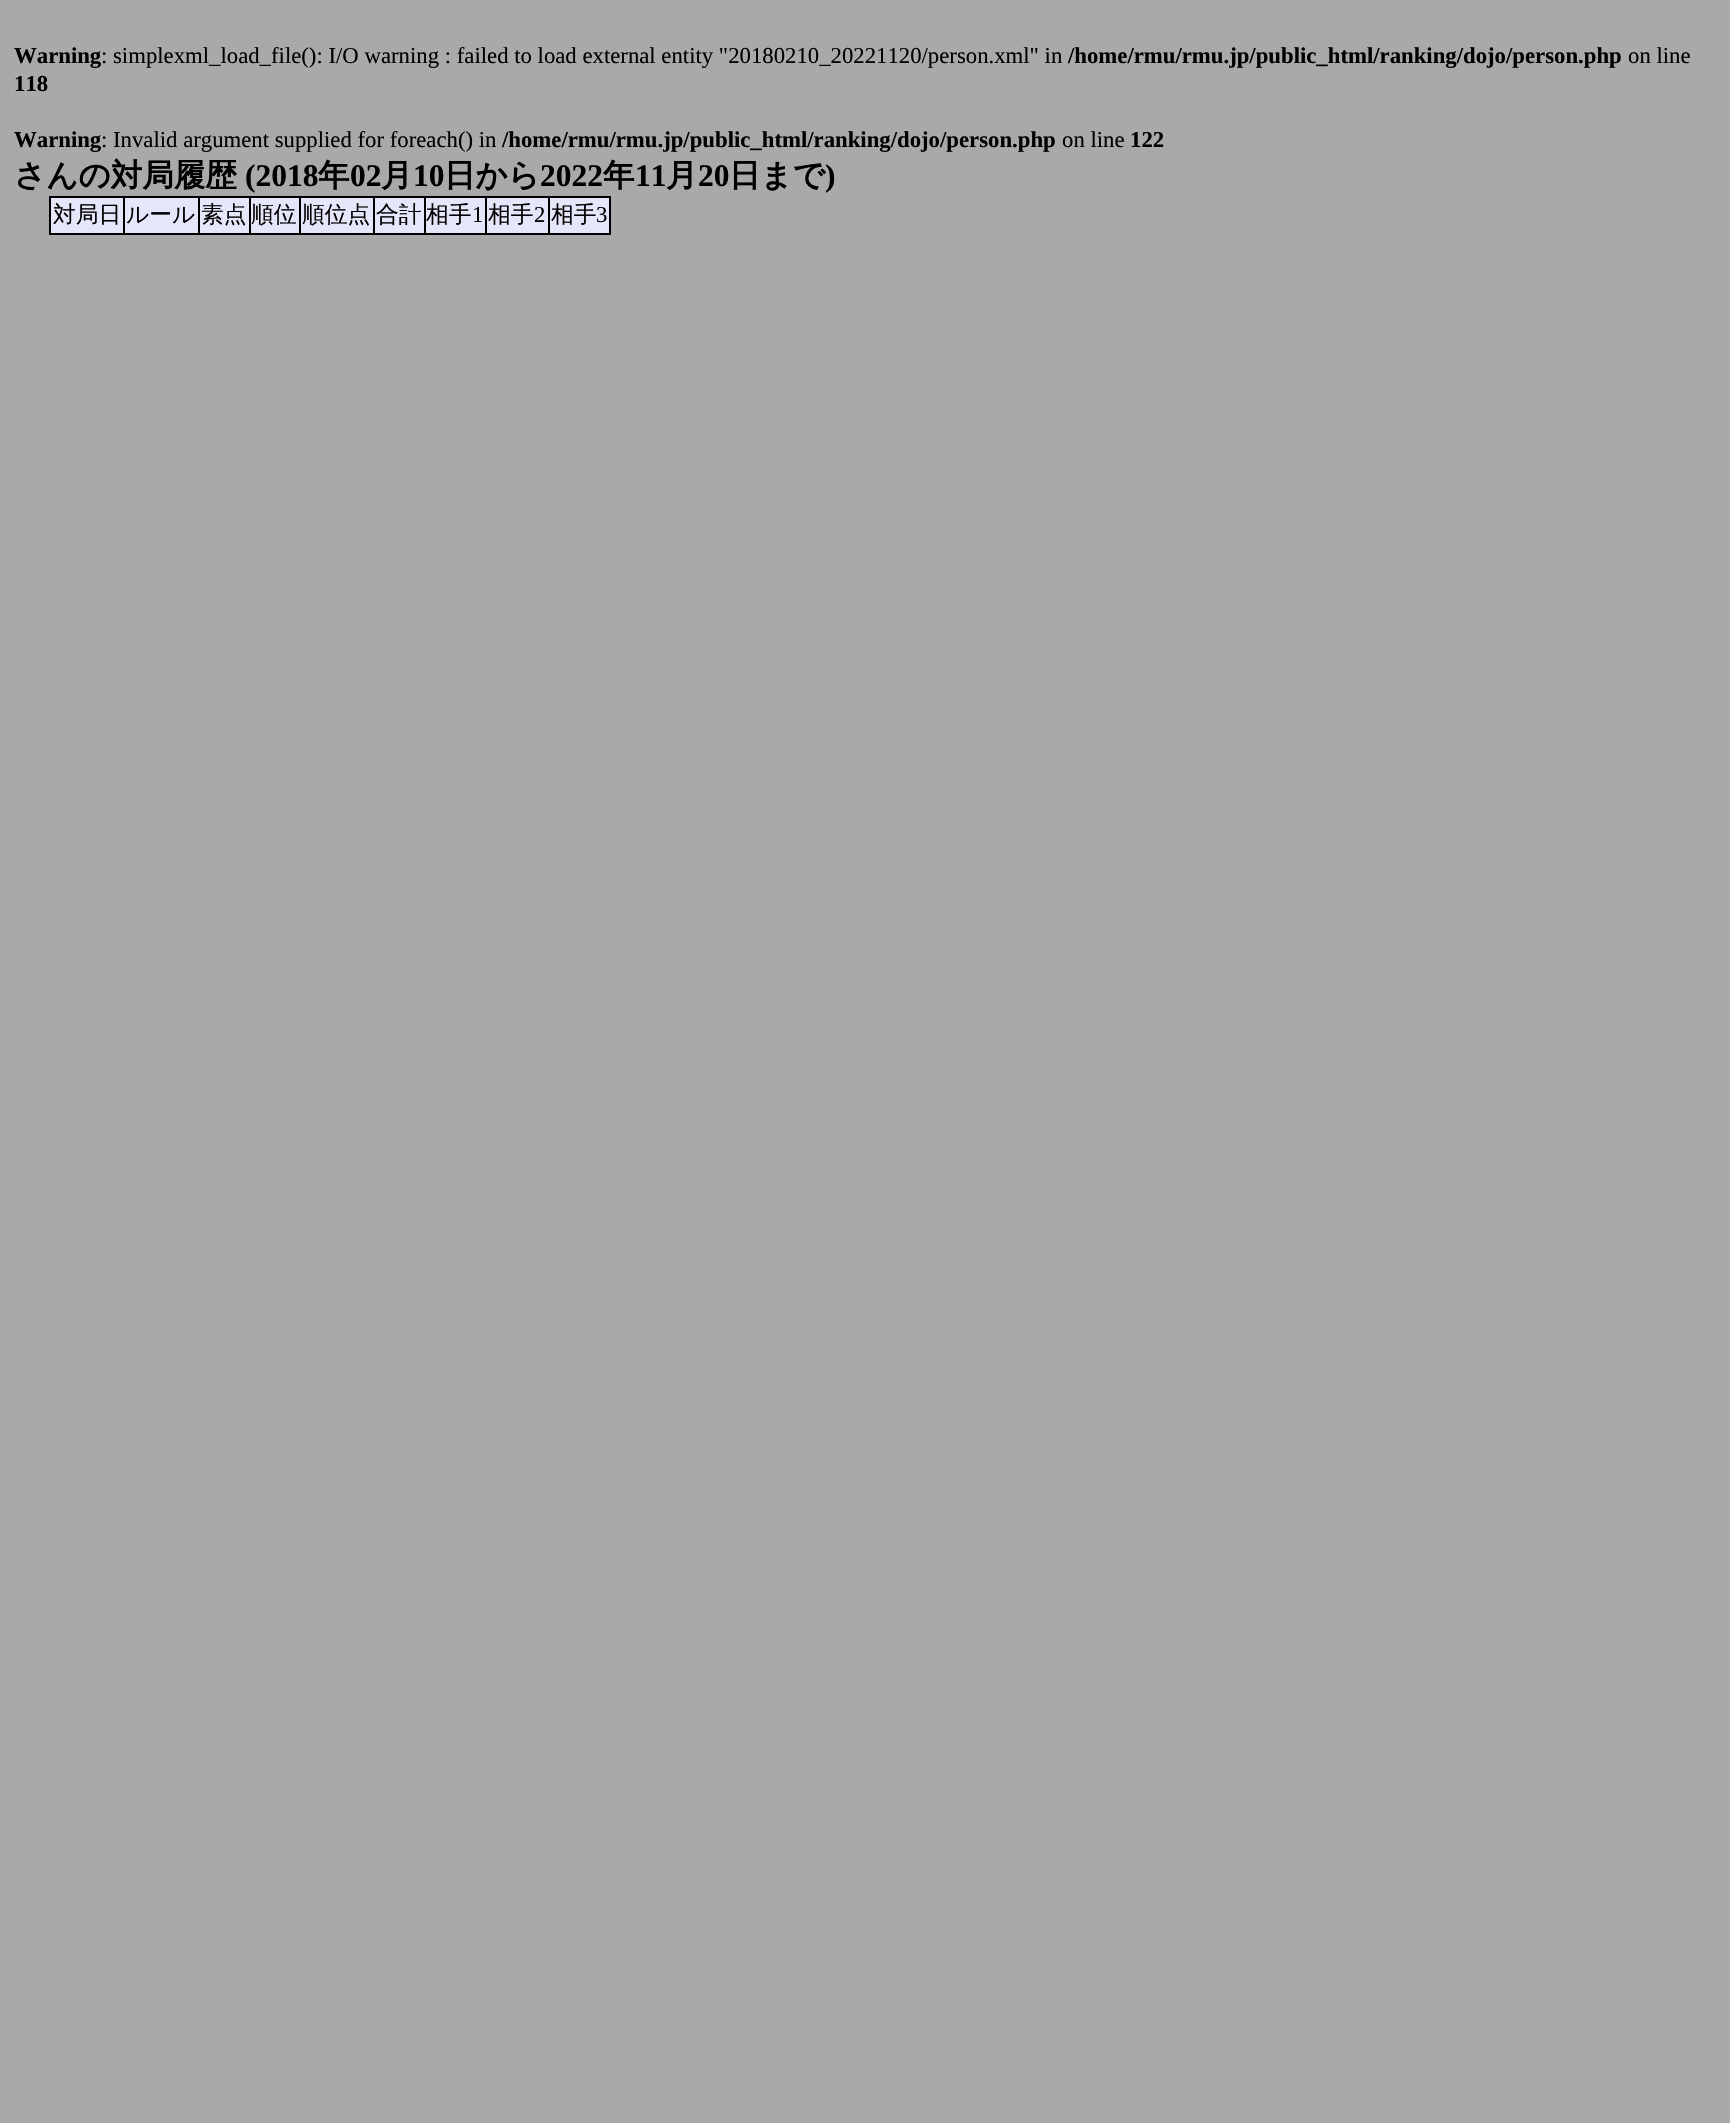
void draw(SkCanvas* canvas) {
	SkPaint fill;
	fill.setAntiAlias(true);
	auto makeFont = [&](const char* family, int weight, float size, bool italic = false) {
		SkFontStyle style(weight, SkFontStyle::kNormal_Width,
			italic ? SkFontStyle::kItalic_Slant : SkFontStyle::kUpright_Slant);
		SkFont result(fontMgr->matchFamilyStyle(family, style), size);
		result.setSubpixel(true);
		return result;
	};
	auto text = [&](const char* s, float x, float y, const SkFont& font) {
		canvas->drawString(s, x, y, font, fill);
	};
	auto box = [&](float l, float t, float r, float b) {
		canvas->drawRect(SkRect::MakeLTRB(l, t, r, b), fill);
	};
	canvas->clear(0xFFA9A9A9);
	fill.setColor(0xFFE6E6FA);
	box(51, 198, 609, 233);
	fill.setColor(0xFF000000);
	box(548, 196, 611, 198);
	box(609, 196, 611, 235);
	box(548, 233, 611, 235);
	box(548, 196, 550, 235);
	box(485, 196, 550, 198);
	box(485, 233, 550, 235);
	box(485, 196, 487, 235);
	box(424, 196, 487, 198);
	box(424, 233, 487, 235);
	box(424, 196, 426, 235);
	box(373, 196, 425, 198);
	box(373, 233, 425, 235);
	box(373, 196, 375, 235);
	box(299, 196, 375, 198);
	box(299, 233, 375, 235);
	box(299, 196, 301, 235);
	box(249, 196, 301, 198);
	box(249, 233, 301, 235);
	box(249, 196, 251, 235);
	box(198, 196, 250, 198);
	box(198, 233, 250, 235);
	box(198, 196, 200, 235);
	box(123, 196, 200, 198);
	box(123, 233, 200, 235);
	box(123, 196, 125, 235);
	box(49, 196, 124, 198);
	box(49, 233, 124, 235);
	box(49, 196, 51, 235);
	auto font1 = makeFont("Liberation Serif", 700, 22.75f);
	text("Warning", 14, 63, font1);
	auto font2 = makeFont("Liberation Serif", 400, 22.75f);
	text(": simplexml_load_file(): I/O warning : failed to load external entity \"20180210_20221120/person.xml\" in", 101, 63, font2);
	text("/home/rmu/rmu.jp/public_html/ranking/dojo/person.php", 1068, 63, font1);
	text("on line", 1628, 63, font2);
	text("118", 14, 91, font1);
	text("Warning", 14, 147, font1);
	text(": Invalid argument supplied for foreach() in", 101, 147, font2);
	text("/home/rmu/rmu.jp/public_html/ranking/dojo/person.php", 502, 147, font1);
	text("on line", 1062, 147, font2);
	text("122", 1130, 147, font1);
	auto font3 = makeFont("WenQuanYi Zen Hei", 700, 31.5f);
	text("さんの対局履歴", 14, 186, font3);
	auto font4 = makeFont("Liberation Serif", 700, 31.5f);
	text("(2018", 245, 186, font4);
	text("年", 318, 186, font3);
	text("02", 350, 186, font4);
	text("月", 381, 186, font3);
	text("10", 413, 186, font4);
	text("日から", 444, 186, font3);
	text("2022", 540, 186, font4);
	text("年", 603, 186, font3);
	text("11", 635, 186, font4);
	text("月", 666, 186, font3);
	text("20", 698, 186, font4);
	text("日まで", 729, 186, font3);
	text(")", 825, 186, font4);
	auto font5 = makeFont("WenQuanYi Zen Hei", 500, 22.75f);
	text("対局日", 53, 222, font5);
	text("ルール", 126, 222, font5);
	text("素点", 201, 222, font5);
	text("順位", 251, 222, font5);
	text("順位点", 302, 222, font5);
	text("合計", 376, 222, font5);
	text("相手", 426, 222, font5);
	text("1", 472, 222, font2);
	text("相手", 488, 222, font5);
	text("2", 534, 222, font2);
	text("相手", 551, 222, font5);
	text("3", 596, 222, font2);
}
